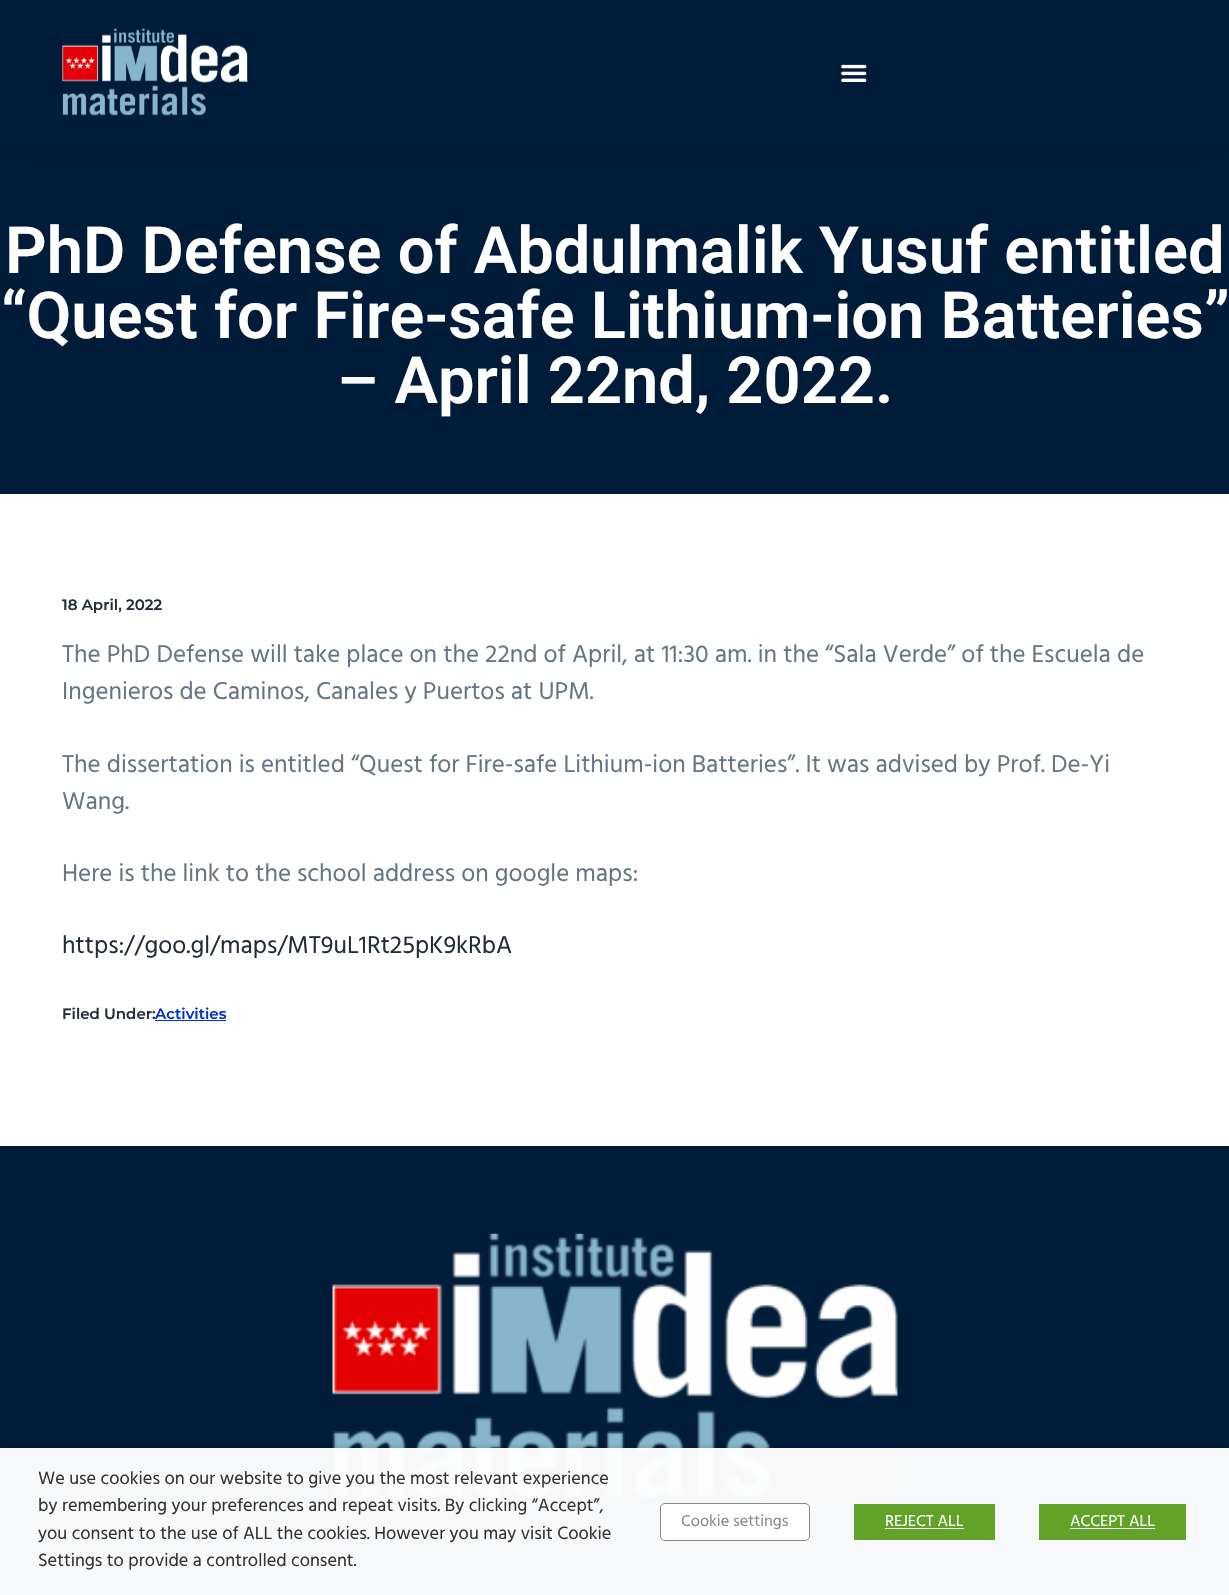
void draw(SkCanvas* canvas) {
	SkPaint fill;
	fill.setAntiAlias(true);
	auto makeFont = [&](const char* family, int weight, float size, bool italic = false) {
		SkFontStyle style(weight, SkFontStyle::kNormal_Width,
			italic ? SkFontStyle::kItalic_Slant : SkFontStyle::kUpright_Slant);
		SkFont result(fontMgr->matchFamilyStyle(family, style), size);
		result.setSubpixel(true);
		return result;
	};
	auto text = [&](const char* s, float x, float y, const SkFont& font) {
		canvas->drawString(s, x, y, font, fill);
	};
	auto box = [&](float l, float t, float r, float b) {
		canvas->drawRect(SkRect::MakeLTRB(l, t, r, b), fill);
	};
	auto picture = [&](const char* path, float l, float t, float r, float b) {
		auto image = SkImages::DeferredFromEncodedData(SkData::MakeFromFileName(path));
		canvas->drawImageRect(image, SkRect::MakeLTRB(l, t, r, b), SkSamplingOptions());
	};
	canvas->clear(0xFFFFFFFF);
	fill.setColor(0xFF001C38);
	box(0, 144, 1229, 494);
	fill.setColor(0x1A000000);
	fill.setMaskFilter(SkMaskFilter::MakeBlur(kNormal_SkBlurStyle, 24));
	canvas->drawRect(SkRect::MakeLTRB(0, 0, 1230, 144), fill);
	fill.setMaskFilter(nullptr);
	fill.setColor(0xFF001C38);
	box(0, 0, 1229, 144);
	picture("image0.png", 62, 28, 248, 116);
	picture("image1.png", 841, 64, 867, 82);
	fill.setColor(0xFF0031D5);
	box(155, 1020, 226, 1021);
	fill.setColor(0xFF001C38);
	box(0, 1146, 1229, 1595);
	picture("image2.png", 332, 1233, 898, 1498);
	canvas->save();
	canvas->clipRect(SkRect::MakeLTRB(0, 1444, 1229, 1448));
	fill.setColor(0x80000000);
	fill.setMaskFilter(SkMaskFilter::MakeBlur(kNormal_SkBlurStyle, 6));
	canvas->drawRect(SkRect::MakeLTRB(0, 1454, 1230, 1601), fill);
	fill.setMaskFilter(nullptr);
	canvas->restore();
	fill.setColor(0xF7FFFFFF);
	box(0, 1448, 1229, 1595);
	fill.setColor(0xFFFFFFFF);
	canvas->drawRoundRect(SkRect::MakeLTRB(660.5f, 1503.5f, 809.5f, 1540.5f), 4.5f, 4.5f, fill);
	fill.setStyle(SkPaint::kStroke_Style);
	fill.setStrokeWidth(1);
	fill.setColor(0xFF898888);
	canvas->drawRoundRect(SkRect::MakeLTRB(660.5f, 1503.5f, 809.5f, 1540.5f), 4.5f, 4.5f, fill);
	fill.setStyle(SkPaint::kFill_Style);
	fill.setColor(0xFF61A229);
	box(854, 1504, 995, 1540);
	fill.setColor(0xFFFFFFFF);
	box(885, 1528, 964, 1529);
	fill.setColor(0xFF61A229);
	box(1039, 1504, 1186, 1540);
	fill.setColor(0xFFFFFFFF);
	box(1070, 1528, 1155, 1529);
	auto font1 = makeFont("Roboto", 600, 65);
	text("PhD Defense of Abdulmalik Yusuf entitled", 5, 273, font1);
	text("“Quest for Fire-safe Lithium-ion Batteries”", 1, 338, font1);
	text("– April 22nd, 2022.", 337, 403, font1);
	auto font2 = makeFont("Montserrat", 100, 15);
	fill.setColor(0xFF232C39);
	text("18 April, 2022", 62, 610, font2);
	auto font3 = makeFont("Hind", 400, 25);
	fill.setColor(0xFF647585);
	text("The PhD Defense will take place on the 22nd of April, at 11:30 am. in the “Sala Verde” of the Escuela de", 62, 662, font3);
	text("Ingenieros de Caminos, Canales y Puertos at UPM.", 62, 699, font3);
	text("The dissertation is entitled “Quest for Fire-safe Lithium-ion Batteries”. It was advised by Prof. De-Yi", 62, 772, font3);
	text("Wang.", 62, 809, font3);
	text("Here is the link to the school address on google maps:", 62, 881, font3);
	fill.setColor(0xFF232C39);
	text("https://goo.gl/maps/MT9uL1Rt25pK9kRbA", 62, 953, font3);
	text("Filed Under:", 62, 1019, font2);
	fill.setColor(0xFF0031D5);
	text("Activities", 155, 1019, font2);
	auto font4 = makeFont("Hind", 400, 18.3f);
	fill.setColor(0xFF333333);
	text("We use cookies on our website to give you the most relevant experience", 38, 1484, font4);
	text("by remembering your preferences and repeat visits. By clicking “Accept”,", 38, 1511, font4);
	text("you consent to the use of ALL the cookies. However you may visit Cookie", 38, 1539, font4);
	text("Settings to provide a controlled consent.", 38, 1566, font4);
	auto font5 = makeFont("Hind", 400, 16.25f);
	fill.setColor(0xFF898888);
	text("Cookie settings", 681, 1526, font5);
	fill.setColor(0xFFFFFFFF);
	text("REJECT ALL", 885, 1526, font5);
	text("ACCEPT ALL", 1070, 1526, font5);
}
